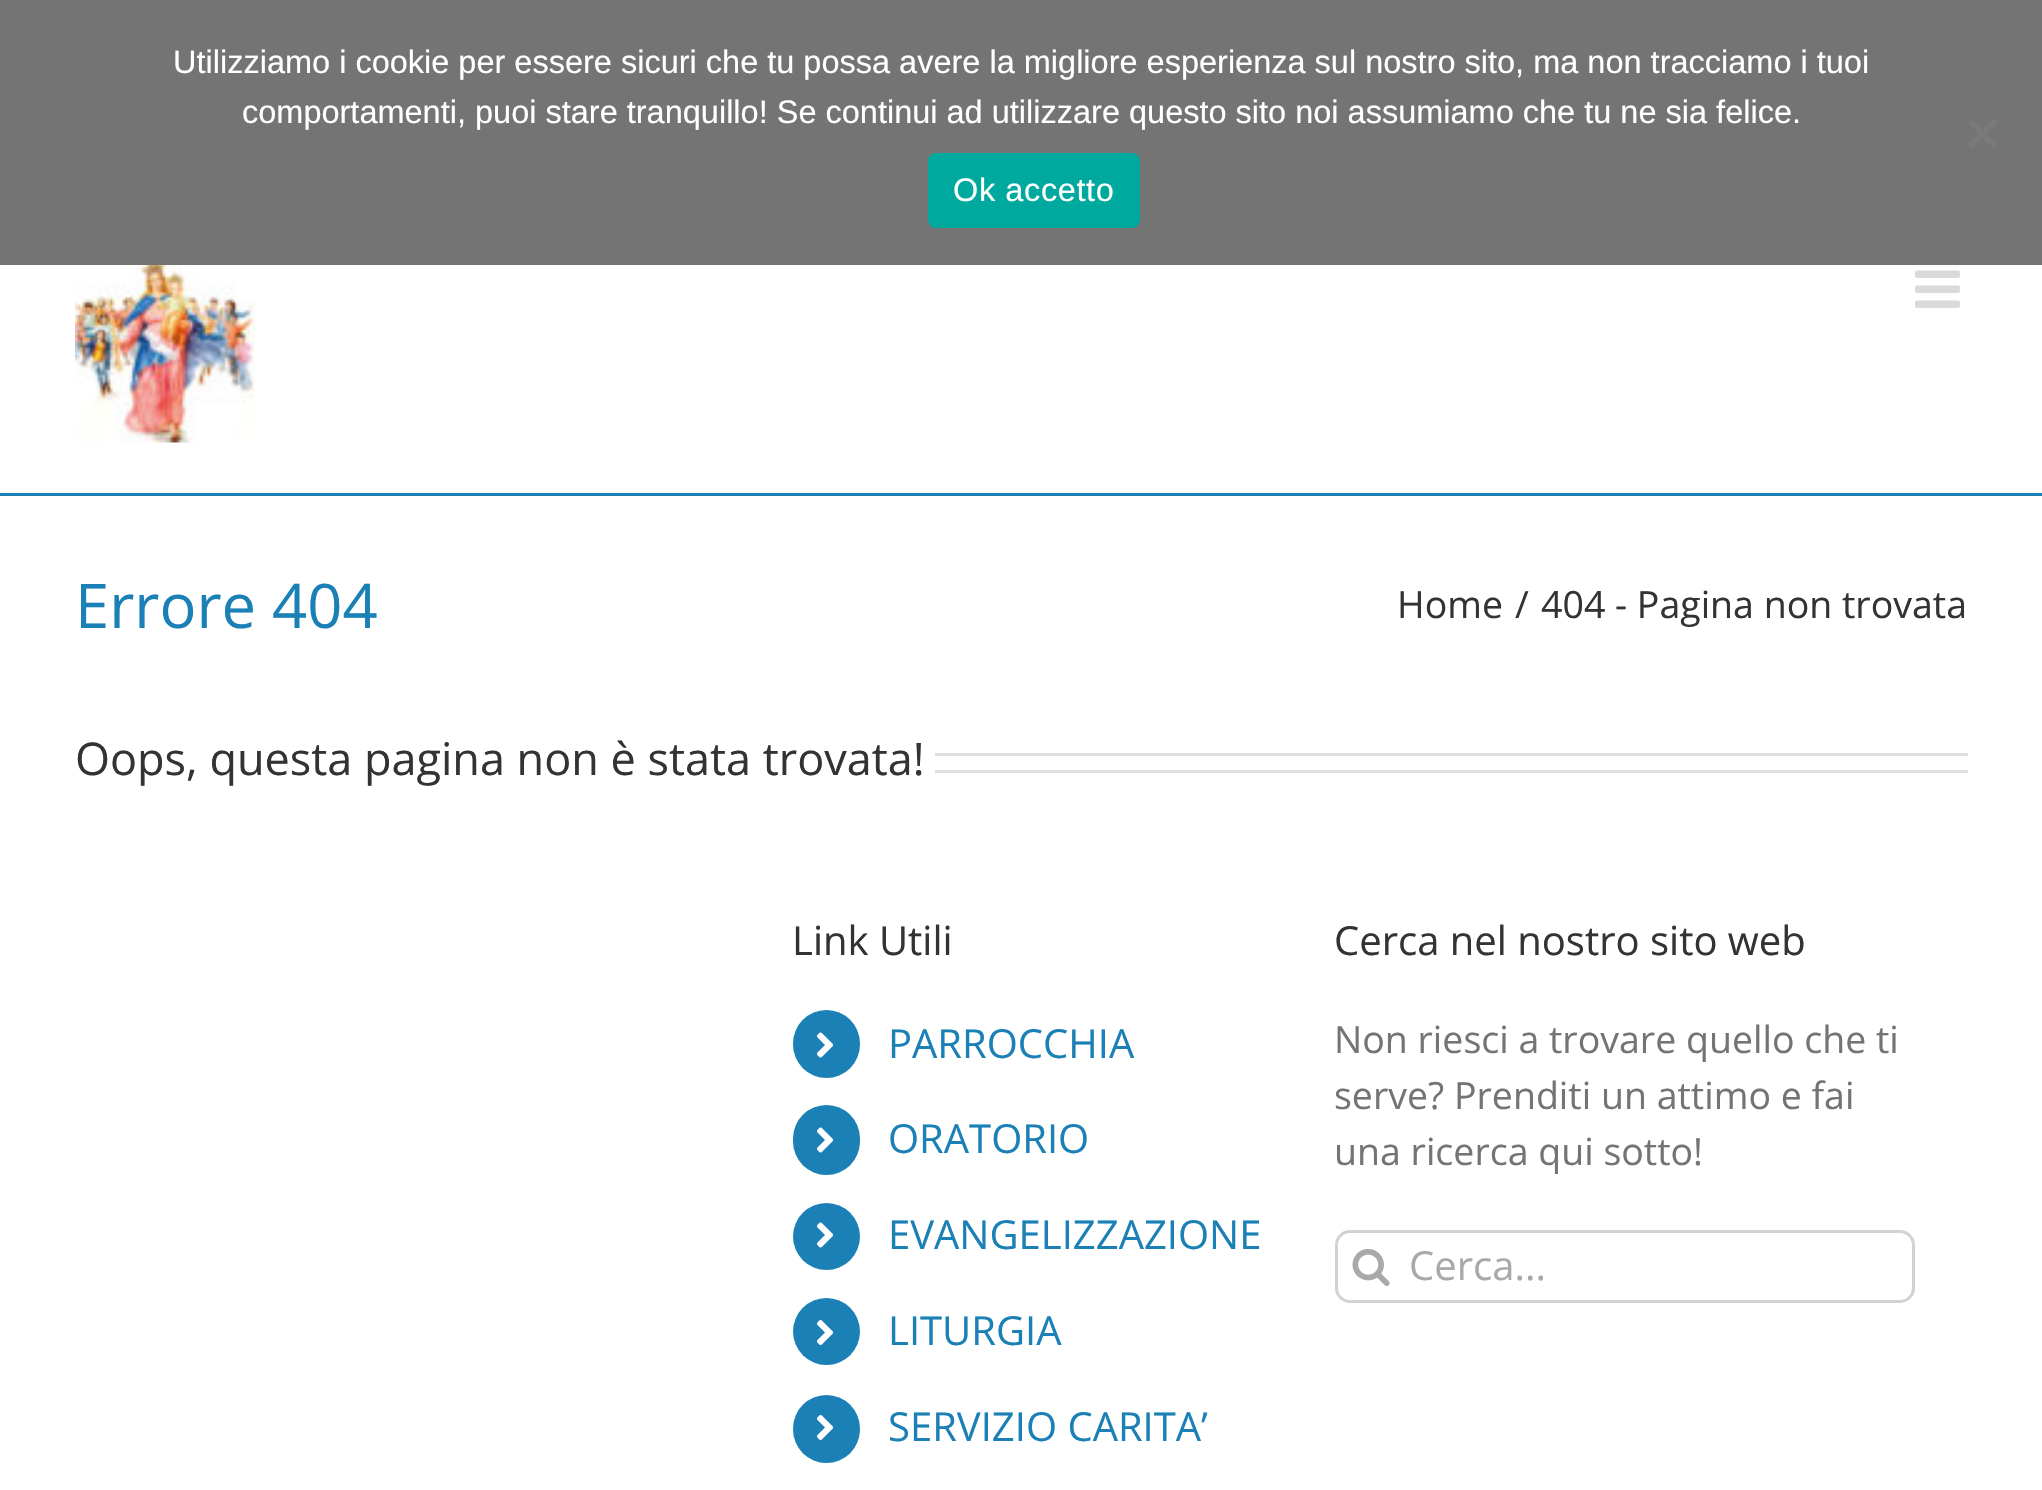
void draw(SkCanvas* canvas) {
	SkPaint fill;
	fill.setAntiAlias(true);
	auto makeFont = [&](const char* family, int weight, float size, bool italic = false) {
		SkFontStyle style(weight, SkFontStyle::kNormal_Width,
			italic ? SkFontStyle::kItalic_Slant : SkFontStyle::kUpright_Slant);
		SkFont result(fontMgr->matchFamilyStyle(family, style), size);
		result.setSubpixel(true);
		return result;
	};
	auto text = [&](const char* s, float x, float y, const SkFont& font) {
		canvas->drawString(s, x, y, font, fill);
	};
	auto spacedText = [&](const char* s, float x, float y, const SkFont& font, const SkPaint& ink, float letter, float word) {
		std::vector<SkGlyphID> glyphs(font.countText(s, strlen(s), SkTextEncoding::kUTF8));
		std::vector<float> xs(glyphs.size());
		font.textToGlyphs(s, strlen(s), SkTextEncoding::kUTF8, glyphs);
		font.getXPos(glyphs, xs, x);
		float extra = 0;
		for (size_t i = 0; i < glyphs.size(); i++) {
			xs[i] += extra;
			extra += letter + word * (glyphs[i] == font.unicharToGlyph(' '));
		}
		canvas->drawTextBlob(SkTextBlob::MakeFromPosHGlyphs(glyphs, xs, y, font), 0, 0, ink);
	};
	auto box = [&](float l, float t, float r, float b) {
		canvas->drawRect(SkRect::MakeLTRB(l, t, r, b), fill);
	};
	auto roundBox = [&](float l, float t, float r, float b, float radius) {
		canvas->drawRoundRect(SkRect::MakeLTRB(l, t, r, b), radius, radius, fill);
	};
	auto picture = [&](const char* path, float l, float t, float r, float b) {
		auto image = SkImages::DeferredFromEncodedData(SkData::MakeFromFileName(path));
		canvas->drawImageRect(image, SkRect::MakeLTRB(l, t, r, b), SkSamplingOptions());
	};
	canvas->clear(0xFFFFFFFF);
	fill.setColor(0xFF747474);
	box(0, 0, 2042, 265);
	fill.setColor(0xFF7A7A7A);
	canvas->drawPath(SkPathBuilder().moveTo(1994, 118.5f).lineTo(1997.5f, 122.5f).lineTo(1971, 149).lineTo(1967.5f, 145).close().detach(), fill);
	canvas->drawPath(SkPathBuilder().moveTo(1967.5f, 122.5f).lineTo(1971, 118.5f).lineTo(1997.5f, 145).lineTo(1994, 149).close().detach(), fill);
	fill.setColor(0xFF00A99D);
	roundBox(928, 153, 1140, 228, 8);
	fill.setColor(0xFF1A80B6);
	box(0, 493, 2042, 496);
	picture("image0.png", 75, 265, 255, 443);
	picture("image1.png", 1915, 270, 1960, 308);
	fill.setColor(0xFFE0DEDE);
	box(935, 753, 1968, 756);
	box(935, 770, 1968, 773);
	fill.setColor(0xFF1A80B6);
	roundBox(793, 1010, 860, 1078, 33.5f);
	picture("image2.png", 817, 1032, 833, 1058);
	roundBox(793, 1105, 860, 1175, 33.5f);
	picture("image2.png", 817, 1127, 833, 1153);
	canvas->drawCircle(826.5f, 1236.5f, 33.5f, fill);
	picture("image2.png", 817, 1222, 833, 1248);
	canvas->drawCircle(826.5f, 1331.5f, 33.5f, fill);
	picture("image3.png", 817, 1320, 833, 1345);
	roundBox(793, 1395, 860, 1463, 33.5f);
	picture("image3.png", 817, 1415, 833, 1440);
	fill.setStyle(SkPaint::kStroke_Style);
	fill.setStrokeWidth(3);
	fill.setColor(0xFFD2D2D2);
	canvas->drawRoundRect(SkRect::MakeLTRB(1336.5f, 1231.5f, 1913.5f, 1301.5f), 13.5f, 13.5f, fill);
	picture("image4.png", 1352, 1248, 1390, 1286);
	auto font1 = makeFont("Liberation Sans", 400, 32.5f);
	fill.setStyle(SkPaint::kFill_Style);
	fill.setColor(0xFFFFFFFF);
	text("Utilizziamo i cookie per essere sicuri che tu possa avere la migliore esperienza sul nostro sito, ma non tracciamo i tuoi", 173, 73, font1);
	text("comportamenti, puoi stare tranquillo! Se continui ad utilizzare questo sito noi assumiamo che tu ne sia felice.", 242, 123, font1);
	spacedText("Ok accetto", 953, 201, font1, fill, 0.6f, 0);
	auto font2 = makeFont("Open Sans", 400, 61.5f);
	fill.setColor(0xFF1A80B6);
	text("Errore 404", 75, 628, font2);
	auto font3 = makeFont("Open Sans", 400, 37.5f);
	fill.setColor(0xFF333333);
	text("Home", 1397, 618, font3);
	text("/", 1515, 618, font3);
	text("404 - Pagina non trovata", 1541, 618, font3);
	auto font4 = makeFont("Open Sans", 400, 45);
	text("Oops, questa pagina non è stata trovata!", 75, 775, font4);
	auto font5 = makeFont("Open Sans", 400, 40);
	text("Link Utili", 792, 955, font5);
	fill.setColor(0xFF1A80B6);
	text("PARROCCHIA", 888, 1058, font5);
	text("ORATORIO", 888, 1153, font5);
	text("EVANGELIZZAZIONE", 888, 1249, font5);
	text("LITURGIA", 888, 1345, font5);
	text("SERVIZIO CARITA’", 888, 1441, font5);
	fill.setColor(0xFF333333);
	text("Cerca nel nostro sito web", 1334, 955, font5);
	fill.setColor(0xFF747474);
	text("Non riesci a trovare quello che ti", 1334, 1053, font3);
	text("serve? Prenditi un attimo e fai", 1334, 1109, font3);
	text("una ricerca qui sotto!", 1334, 1165, font3);
	fill.setColor(0xFFAAA9A9);
	text("Cerca...", 1409, 1280, font5);
}
